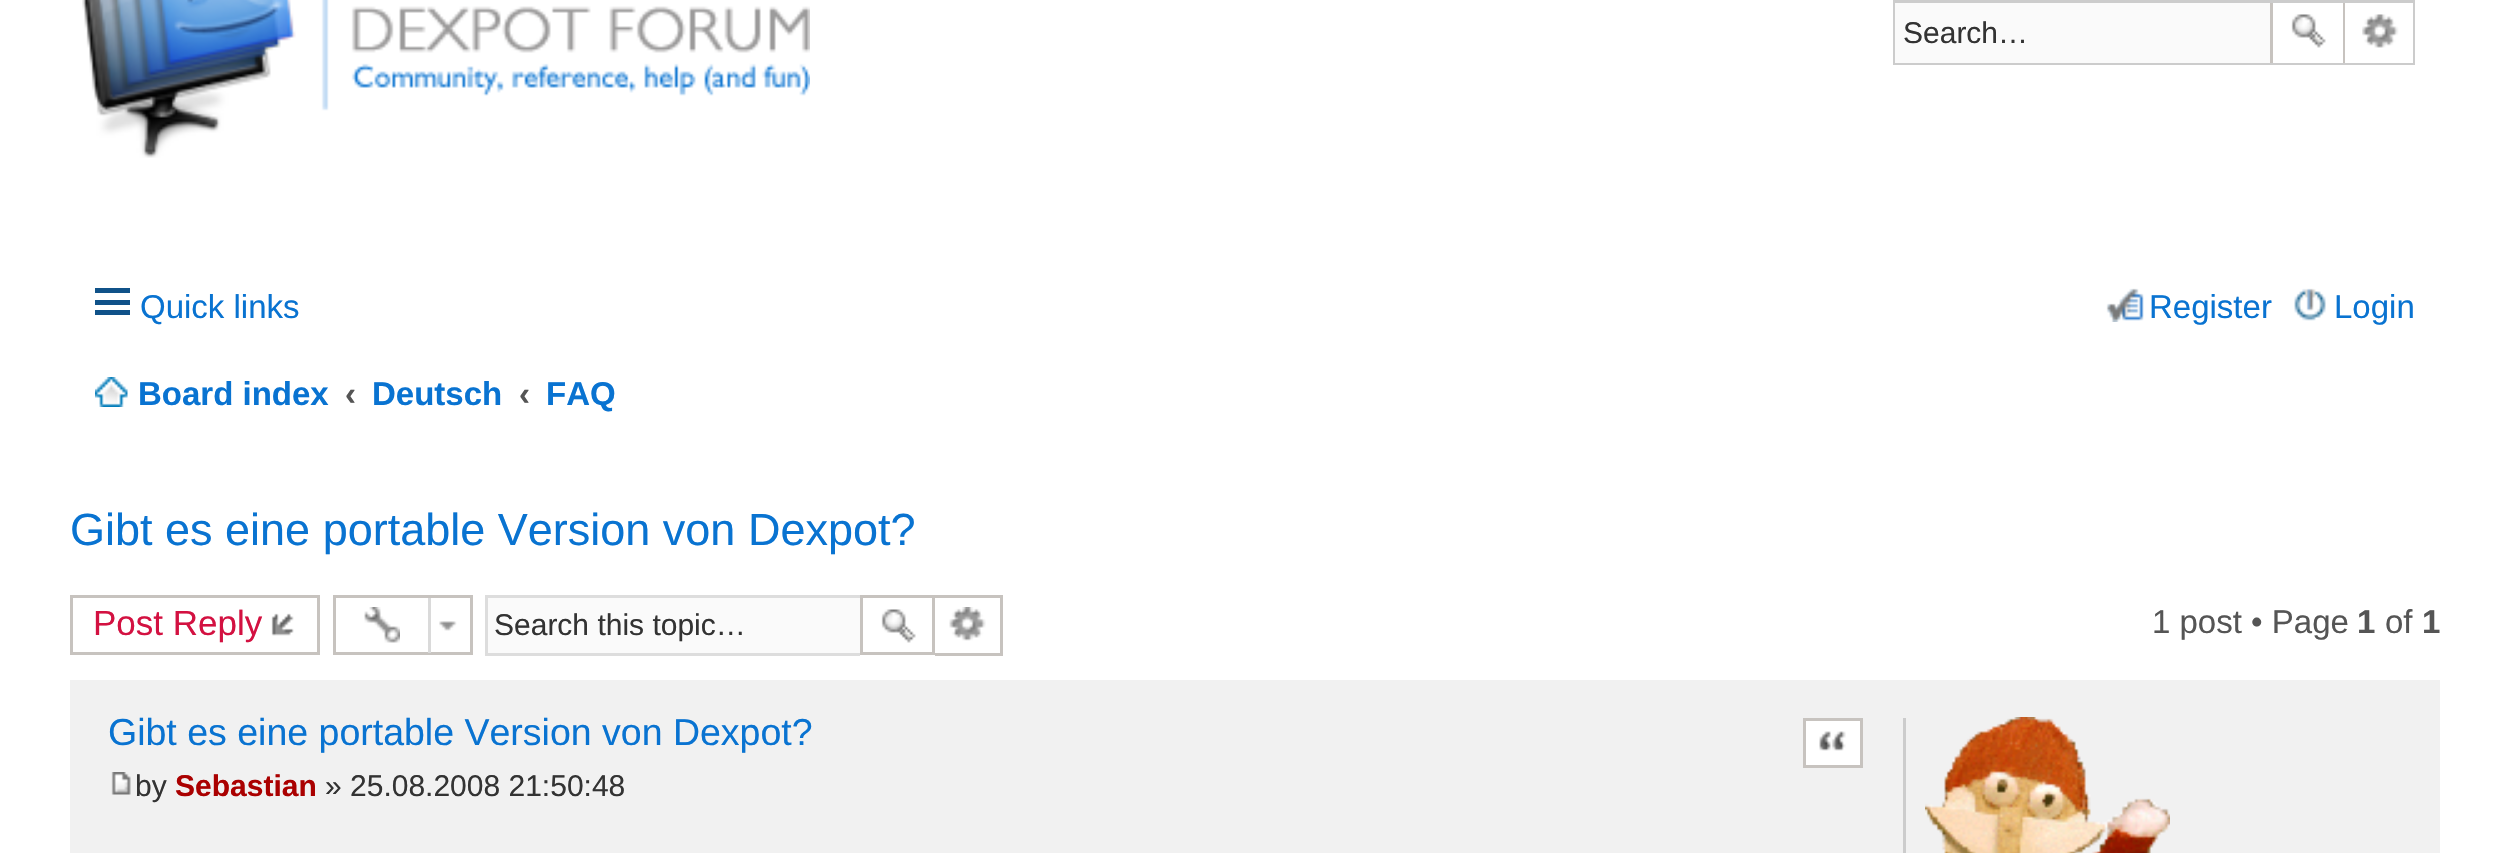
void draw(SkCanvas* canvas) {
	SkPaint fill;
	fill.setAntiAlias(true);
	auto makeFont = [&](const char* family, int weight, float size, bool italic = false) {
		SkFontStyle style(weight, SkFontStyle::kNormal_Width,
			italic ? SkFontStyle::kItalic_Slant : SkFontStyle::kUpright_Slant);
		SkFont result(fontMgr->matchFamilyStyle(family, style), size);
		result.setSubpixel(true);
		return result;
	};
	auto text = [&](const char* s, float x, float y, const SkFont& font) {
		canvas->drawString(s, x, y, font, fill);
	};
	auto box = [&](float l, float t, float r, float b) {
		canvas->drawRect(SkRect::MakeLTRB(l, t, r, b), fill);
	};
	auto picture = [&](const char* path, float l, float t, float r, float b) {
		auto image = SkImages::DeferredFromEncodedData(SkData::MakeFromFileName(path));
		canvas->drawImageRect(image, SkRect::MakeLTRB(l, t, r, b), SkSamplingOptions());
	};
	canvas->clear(0xFFFFFFFF);
	picture("image0.png", 82, 0, 810, 158);
	fill.setStyle(SkPaint::kStroke_Style);
	fill.setStrokeWidth(3);
	fill.setColor(0xFFCCCCCC);
	canvas->drawRect(SkRect::MakeLTRB(1894.5f, 1.5f, 2413.5f, 63.5f), fill);
	fill.setStyle(SkPaint::kFill_Style);
	fill.setColor(0xFFFAFAFA);
	box(1895, 3, 2270, 63);
	fill.setColor(0xFFFFFFFF);
	box(2273, 62, 2343, 63);
	fill.setColor(0xFFC7C3BF);
	box(2343, 3, 2345, 63);
	box(2270, 3, 2273, 63);
	picture("image1.png", 2291, 14, 2326, 48);
	fill.setColor(0xFFFFFFFF);
	box(2345, 3, 2413, 63);
	picture("image2.png", 2362, 14, 2399, 48);
	fill.setColor(0xFF105289);
	box(95, 288, 130, 293);
	box(95, 300, 130, 305);
	box(95, 310, 130, 315);
	picture("image3.png", 2106, 288, 2144, 322);
	picture("image4.png", 2294, 288, 2326, 321);
	picture("image5.png", 95, 377, 128, 407);
	fill.setStyle(SkPaint::kStroke_Style);
	fill.setColor(0xFFC7C3BF);
	canvas->drawRect(SkRect::MakeLTRB(71.5f, 596.5f, 318.5f, 653.5f), fill);
	picture("image6.png", 271, 613, 294, 636);
	canvas->drawRect(SkRect::MakeLTRB(334.5f, 596.5f, 471.5f, 653.5f), fill);
	picture("image7.png", 364, 607, 400, 643);
	picture("image8.png", 439, 621, 457, 631);
	fill.setStyle(SkPaint::kFill_Style);
	fill.setColor(0xFFDADADA);
	box(428, 598, 431, 653);
	fill.setColor(0xFFFAFAFA);
	box(488, 598, 860, 653);
	fill.setColor(0xFFDDDDDD);
	box(485, 595, 860, 598);
	box(485, 653, 860, 656);
	box(485, 595, 488, 655);
	fill.setStyle(SkPaint::kStroke_Style);
	fill.setColor(0xFFC7C3BF);
	canvas->drawRect(SkRect::MakeLTRB(861.5f, 596.5f, 933.5f, 653.5f), fill);
	picture("image1.png", 881, 609, 916, 643);
	fill.setStyle(SkPaint::kFill_Style);
	box(935, 595, 1003, 598);
	box(1000, 595, 1003, 655);
	box(935, 653, 1003, 656);
	picture("image9.png", 949, 607, 986, 641);
	fill.setColor(0xFFF1F1F1);
	box(70, 680, 2440, 853);
	fill.setColor(0xFFFFFFFF);
	canvas->drawRect(SkRect::MakeLTRB(1804.5f, 719.5f, 1861.5f, 766.5f), fill);
	fill.setStyle(SkPaint::kStroke_Style);
	fill.setColor(0xFFC7C3BF);
	canvas->drawRect(SkRect::MakeLTRB(1804.5f, 719.5f, 1861.5f, 766.5f), fill);
	picture("image10.png", 1819, 731, 1846, 751);
	picture("image11.png", 111, 772, 131, 795);
	fill.setStyle(SkPaint::kFill_Style);
	fill.setColor(0xFFCCCCCC);
	box(1903, 718, 1906, 853);
	picture("image12.png", 1925, 717, 2170, 853);
	auto font1 = makeFont("Liberation Sans", 400, 30);
	fill.setColor(0xFF333333);
	text("Search…", 1903, 43, font1);
	auto font2 = makeFont("Liberation Sans", 400, 33);
	fill.setColor(0xFF0973D1);
	text("Quick links", 140, 318, font2);
	text("Register", 2149, 318, font2);
	text("Login", 2334, 318, font2);
	auto font3 = makeFont("Liberation Sans", 700, 33);
	text("Board index", 138, 405, font3);
	fill.setColor(0xFF555555);
	text("‹", 345, 405, font3);
	fill.setColor(0xFF0973D1);
	text("Deutsch", 372, 405, font3);
	fill.setColor(0xFF555555);
	text("‹", 519, 405, font3);
	fill.setColor(0xFF0973D1);
	text("FAQ", 546, 405, font3);
	auto font4 = makeFont("Liberation Sans", 400, 45);
	text("Gibt es eine portable Version von Dexpot?", 70, 545, font4);
	auto font5 = makeFont("Liberation Sans", 400, 35);
	fill.setColor(0xFFD31141);
	text("Post Reply", 93, 635, font5);
	fill.setColor(0xFF333333);
	text("Search this topic…", 494, 635, font1);
	fill.setColor(0xFF555555);
	text("1 post • Page", 2152, 633, font2);
	text("1", 2357, 633, font3);
	text("of", 2385, 633, font2);
	text("1", 2422, 633, font3);
	auto font6 = makeFont("Liberation Sans", 400, 37.5f);
	fill.setColor(0xFF0973D1);
	text("Gibt es eine portable Version von Dexpot?", 108, 745, font6);
	fill.setColor(0xFF333333);
	text("by", 135, 796, font1);
	auto font7 = makeFont("Liberation Sans", 700, 30);
	fill.setColor(0xFFAA0000);
	text("Sebastian", 175, 796, font7);
	fill.setColor(0xFF333333);
	text("» 25.08.2008 21:50:48", 325, 796, font1);
}
